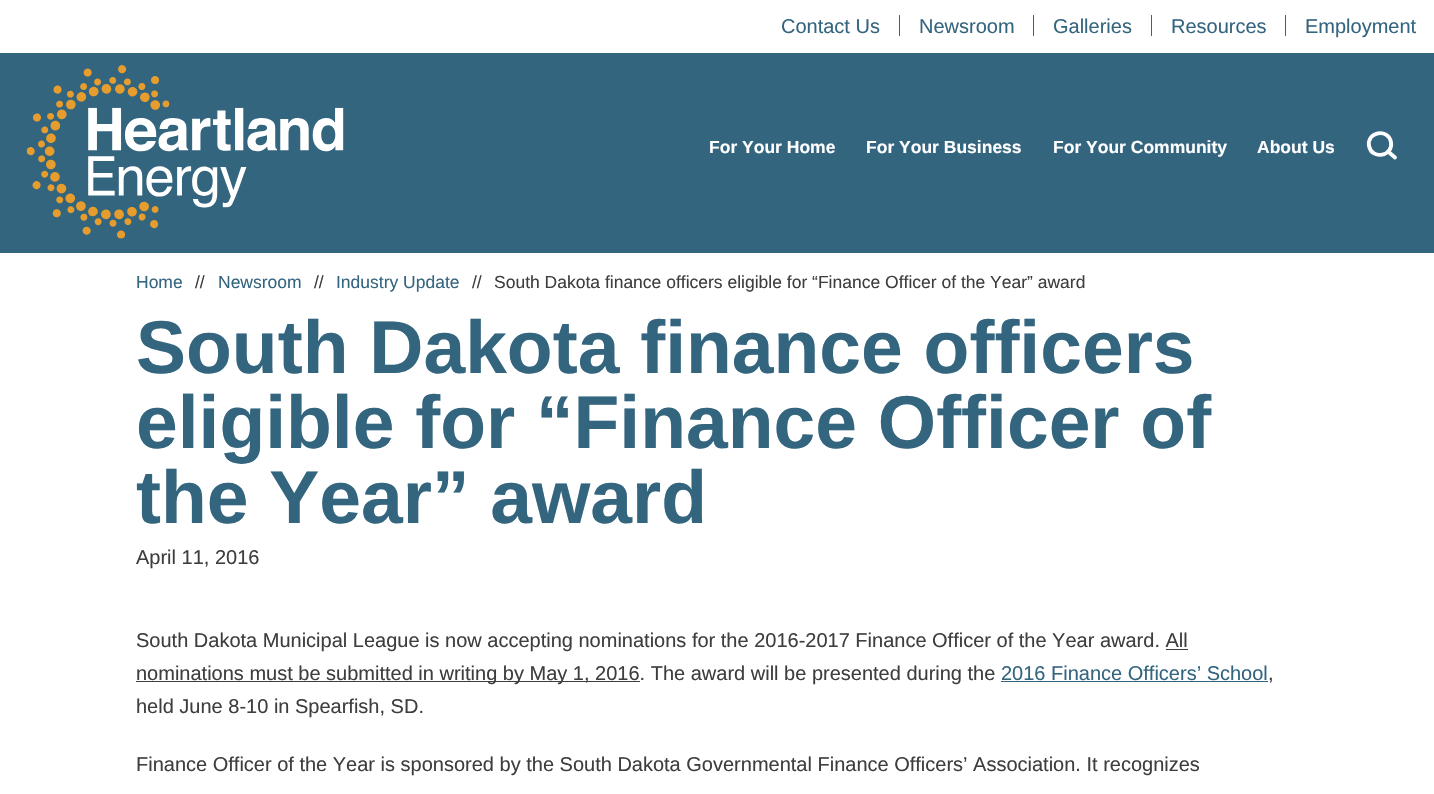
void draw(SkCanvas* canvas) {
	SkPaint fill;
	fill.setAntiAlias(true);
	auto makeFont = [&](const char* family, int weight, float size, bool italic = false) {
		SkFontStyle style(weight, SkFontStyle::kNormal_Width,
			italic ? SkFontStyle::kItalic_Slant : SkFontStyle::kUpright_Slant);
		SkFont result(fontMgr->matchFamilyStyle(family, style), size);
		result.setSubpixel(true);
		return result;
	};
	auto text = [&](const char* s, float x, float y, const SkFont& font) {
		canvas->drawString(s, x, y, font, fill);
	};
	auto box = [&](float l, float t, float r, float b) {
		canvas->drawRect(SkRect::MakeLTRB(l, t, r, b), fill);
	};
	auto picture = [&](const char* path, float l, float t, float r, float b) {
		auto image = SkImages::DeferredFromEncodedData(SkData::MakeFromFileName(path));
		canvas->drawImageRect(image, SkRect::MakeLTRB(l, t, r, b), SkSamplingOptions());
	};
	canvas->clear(0xFFFFFFFF);
	fill.setColor(0xFF34657F);
	box(899, 15, 900, 36);
	box(1033, 15, 1034, 36);
	box(1151, 15, 1152, 36);
	box(1285, 15, 1286, 36);
	box(0, 53, 1434, 253);
	picture("image0.png", 26, 65, 344, 239);
	fill.setStyle(SkPaint::kStroke_Style);
	fill.setStrokeWidth(3.8f);
	fill.setColor(0xFFFFFFFF);
	canvas->drawPath(SkPathBuilder().moveTo(1391, 142).cubicTo(1393.5f, 156, 1372, 160.5f, 1369, 146).cubicTo(1366.5f, 132, 1388, 127.5f, 1391, 142).close().detach(), fill);
	fill.setStrokeCap(SkPaint::kRound_Cap);
	canvas->drawPath(SkPathBuilder().moveTo(1388, 151.5f).lineTo(1395, 157.5f).detach(), fill);
	fill.setStyle(SkPaint::kFill_Style);
	fill.setColor(0xFF3E3E3E);
	box(1166, 649, 1188, 650);
	box(136, 681, 640, 682);
	fill.setColor(0xFF34657F);
	box(1001, 681, 1268, 682);
	auto font1 = makeFont("Liberation Sans", 400, 20);
	text("Contact Us", 781, 33, font1);
	text("Newsroom", 919, 33, font1);
	text("Galleries", 1053, 33, font1);
	text("Resources", 1171, 33, font1);
	text("Employment", 1305, 33, font1);
	auto font2 = makeFont("Liberation Sans", 700, 17.5f);
	fill.setColor(0xFFFFFFFF);
	text("For Your Home", 709, 153, font2);
	text("For Your Business", 866, 153, font2);
	text("For Your Community", 1053, 153, font2);
	text("About Us", 1257, 153, font2);
	auto font3 = makeFont("Liberation Sans", 400, 17.5f);
	fill.setColor(0xFF34657F);
	text("Home", 136, 288, font3);
	fill.setColor(0xFF3E3E3E);
	text("//", 195, 288, font3);
	fill.setColor(0xFF34657F);
	text("Newsroom", 218, 288, font3);
	fill.setColor(0xFF3E3E3E);
	text("//", 314, 288, font3);
	fill.setColor(0xFF34657F);
	text("Industry Update", 336, 288, font3);
	fill.setColor(0xFF3E3E3E);
	text("//", 472, 288, font3);
	text("South Dakota finance officers eligible for “Finance Officer of the Year” award", 494, 288, font3);
	auto font4 = makeFont("Liberation Sans", 700, 75);
	fill.setColor(0xFF34657F);
	text("South Dakota finance officers", 136, 373, font4);
	text("eligible for “Finance Officer of", 136, 448, font4);
	text("the Year” award", 136, 523, font4);
	fill.setColor(0xFF3E3E3E);
	text("April 11, 2016", 136, 564, font1);
	text("South Dakota Municipal League is now accepting nominations for the 2016-2017 Finance Officer of the Year award. All", 136, 647, font1);
	text("nominations must be submitted in writing by May 1, 2016. The award will be presented during the", 136, 680, font1);
	fill.setColor(0xFF34657F);
	text("2016 Finance Officers’ School", 1001, 680, font1);
	fill.setColor(0xFF3E3E3E);
	text(",", 1268, 680, font1);
	text("held June 8-10 in Spearfish, SD.", 136, 713, font1);
	text("Finance Officer of the Year is sponsored by the South Dakota Governmental Finance Officers’ Association. It recognizes", 136, 771, font1);
}
